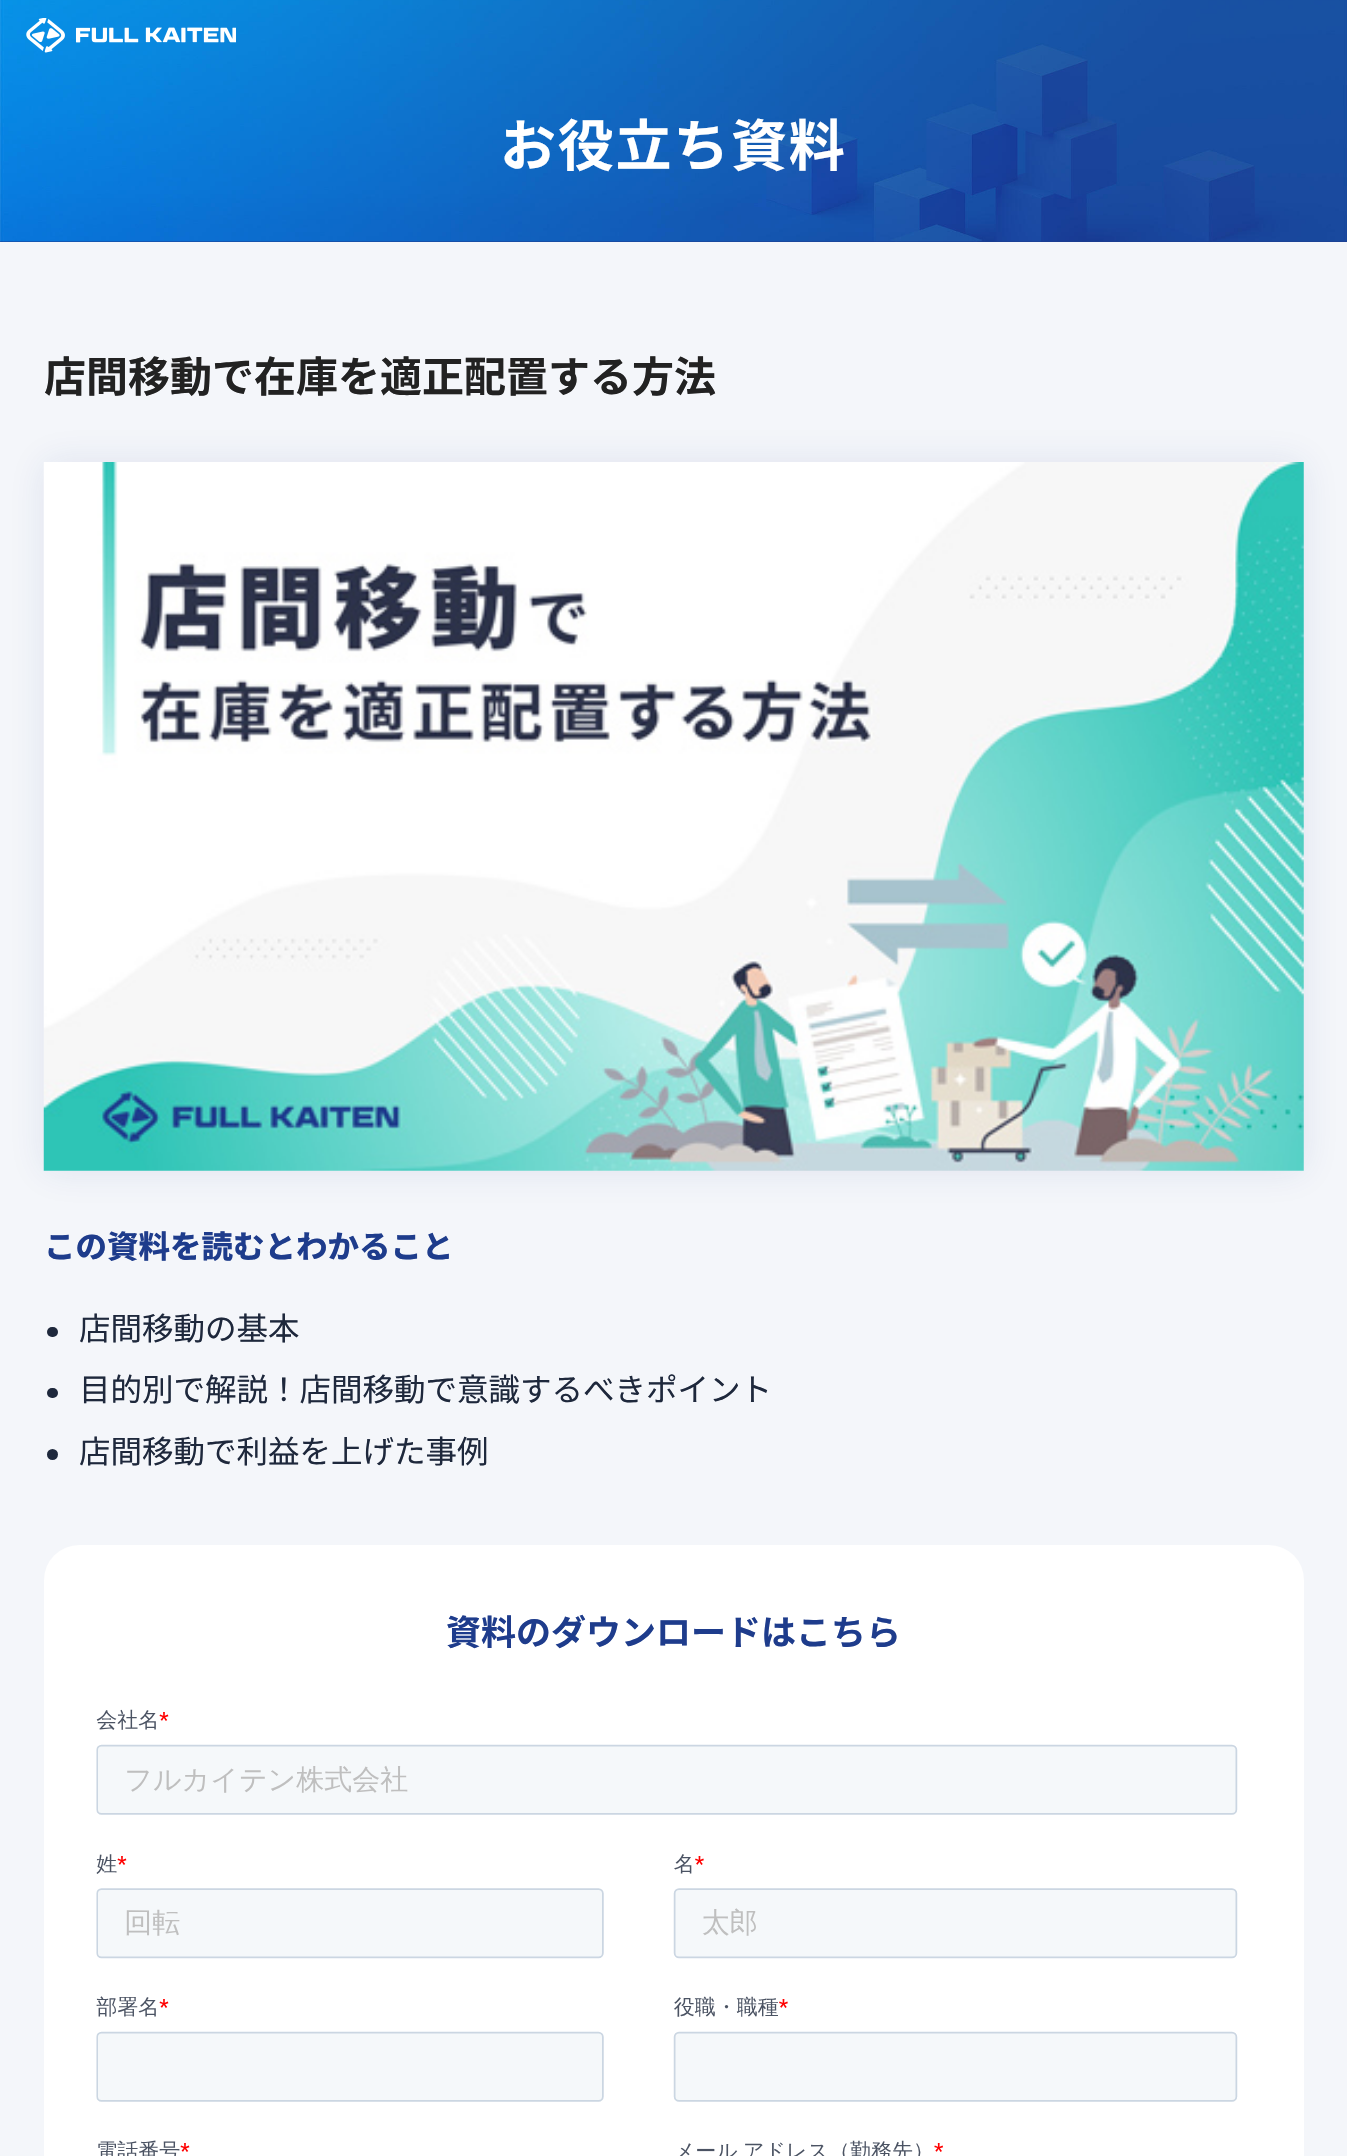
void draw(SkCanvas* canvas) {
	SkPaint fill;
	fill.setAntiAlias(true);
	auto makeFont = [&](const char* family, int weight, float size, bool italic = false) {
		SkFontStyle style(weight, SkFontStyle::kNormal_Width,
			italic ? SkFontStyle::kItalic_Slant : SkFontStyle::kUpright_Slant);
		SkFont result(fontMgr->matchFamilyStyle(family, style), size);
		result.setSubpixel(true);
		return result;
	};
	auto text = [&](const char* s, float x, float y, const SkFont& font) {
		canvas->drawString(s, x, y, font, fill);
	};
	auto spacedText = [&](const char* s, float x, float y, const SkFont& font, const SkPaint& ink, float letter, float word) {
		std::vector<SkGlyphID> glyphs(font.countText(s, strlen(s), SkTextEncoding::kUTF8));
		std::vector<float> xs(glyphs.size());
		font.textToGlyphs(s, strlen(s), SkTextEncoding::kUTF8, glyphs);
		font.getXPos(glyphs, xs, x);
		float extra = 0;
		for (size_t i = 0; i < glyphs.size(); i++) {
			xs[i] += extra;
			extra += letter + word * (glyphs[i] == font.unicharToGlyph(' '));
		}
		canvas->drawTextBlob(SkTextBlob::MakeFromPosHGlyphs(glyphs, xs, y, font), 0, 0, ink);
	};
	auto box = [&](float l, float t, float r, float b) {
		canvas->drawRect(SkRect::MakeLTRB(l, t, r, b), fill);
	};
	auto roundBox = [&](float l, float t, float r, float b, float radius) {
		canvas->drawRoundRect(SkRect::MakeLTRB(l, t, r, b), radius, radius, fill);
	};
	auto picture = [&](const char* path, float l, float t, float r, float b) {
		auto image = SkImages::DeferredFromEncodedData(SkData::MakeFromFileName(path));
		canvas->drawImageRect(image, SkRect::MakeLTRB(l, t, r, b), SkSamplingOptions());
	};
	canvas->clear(0xFFF4F6FA);
	fill.setColor(0xFF1E3C8C);
	box(0, 241, 1347, 242);
	picture("image1.png", 0, 0, 1347, 242);
	picture("image0.png", 26, 18, 236, 53);
	fill.setColor(0x1A1E3C8C);
	fill.setMaskFilter(SkMaskFilter::MakeBlur(kNormal_SkBlurStyle, 17.5f));
	canvas->drawRect(SkRect::MakeLTRB(44, 462, 1304, 1171), fill);
	fill.setMaskFilter(nullptr);
	picture("image2.png", 43, 462, 1304, 1171);
	fill.setColor(0xFF1E283C);
	roundBox(47, 1327, 58, 1337, 5);
	roundBox(47, 1388, 58, 1398, 5);
	canvas->drawCircle(52.5f, 1454.5f, 5.5f, fill);
	fill.setColor(0xFFFFFFFF);
	roundBox(44, 1545, 1304, 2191, 35);
	picture("image3.png", 96, 1709, 1238, 2156);
	auto font1 = makeFont("Noto Sans JP", 700, 56);
	spacedText("お役立ち資料", 500, 166, font1, fill, 1.75f, 0);
	auto font2 = makeFont("Noto Sans JP", 700, 42);
	fill.setColor(0xFF222222);
	text("店間移動で在庫を適正配置する方法", 44, 392, font2);
	auto font3 = makeFont("Noto Sans JP", 800, 31.5f);
	fill.setColor(0xFF1E3C8C);
	text("この資料を読むとわかること", 44, 1258, font3);
	auto font4 = makeFont("Noto Sans JP", 400, 31.5f);
	fill.setColor(0xFF1E283C);
	text("店間移動の基本", 79, 1340, font4);
	text("目的別で解説！店間移動で意識するべきポイント", 79, 1401, font4);
	text("店間移動で利益を上げた事例", 79, 1463, font4);
	auto font5 = makeFont("Noto Sans JP", 700, 35);
	fill.setColor(0xFF1E3C8C);
	text("資料のダウンロードはこちら", 446, 1645, font5);
}
